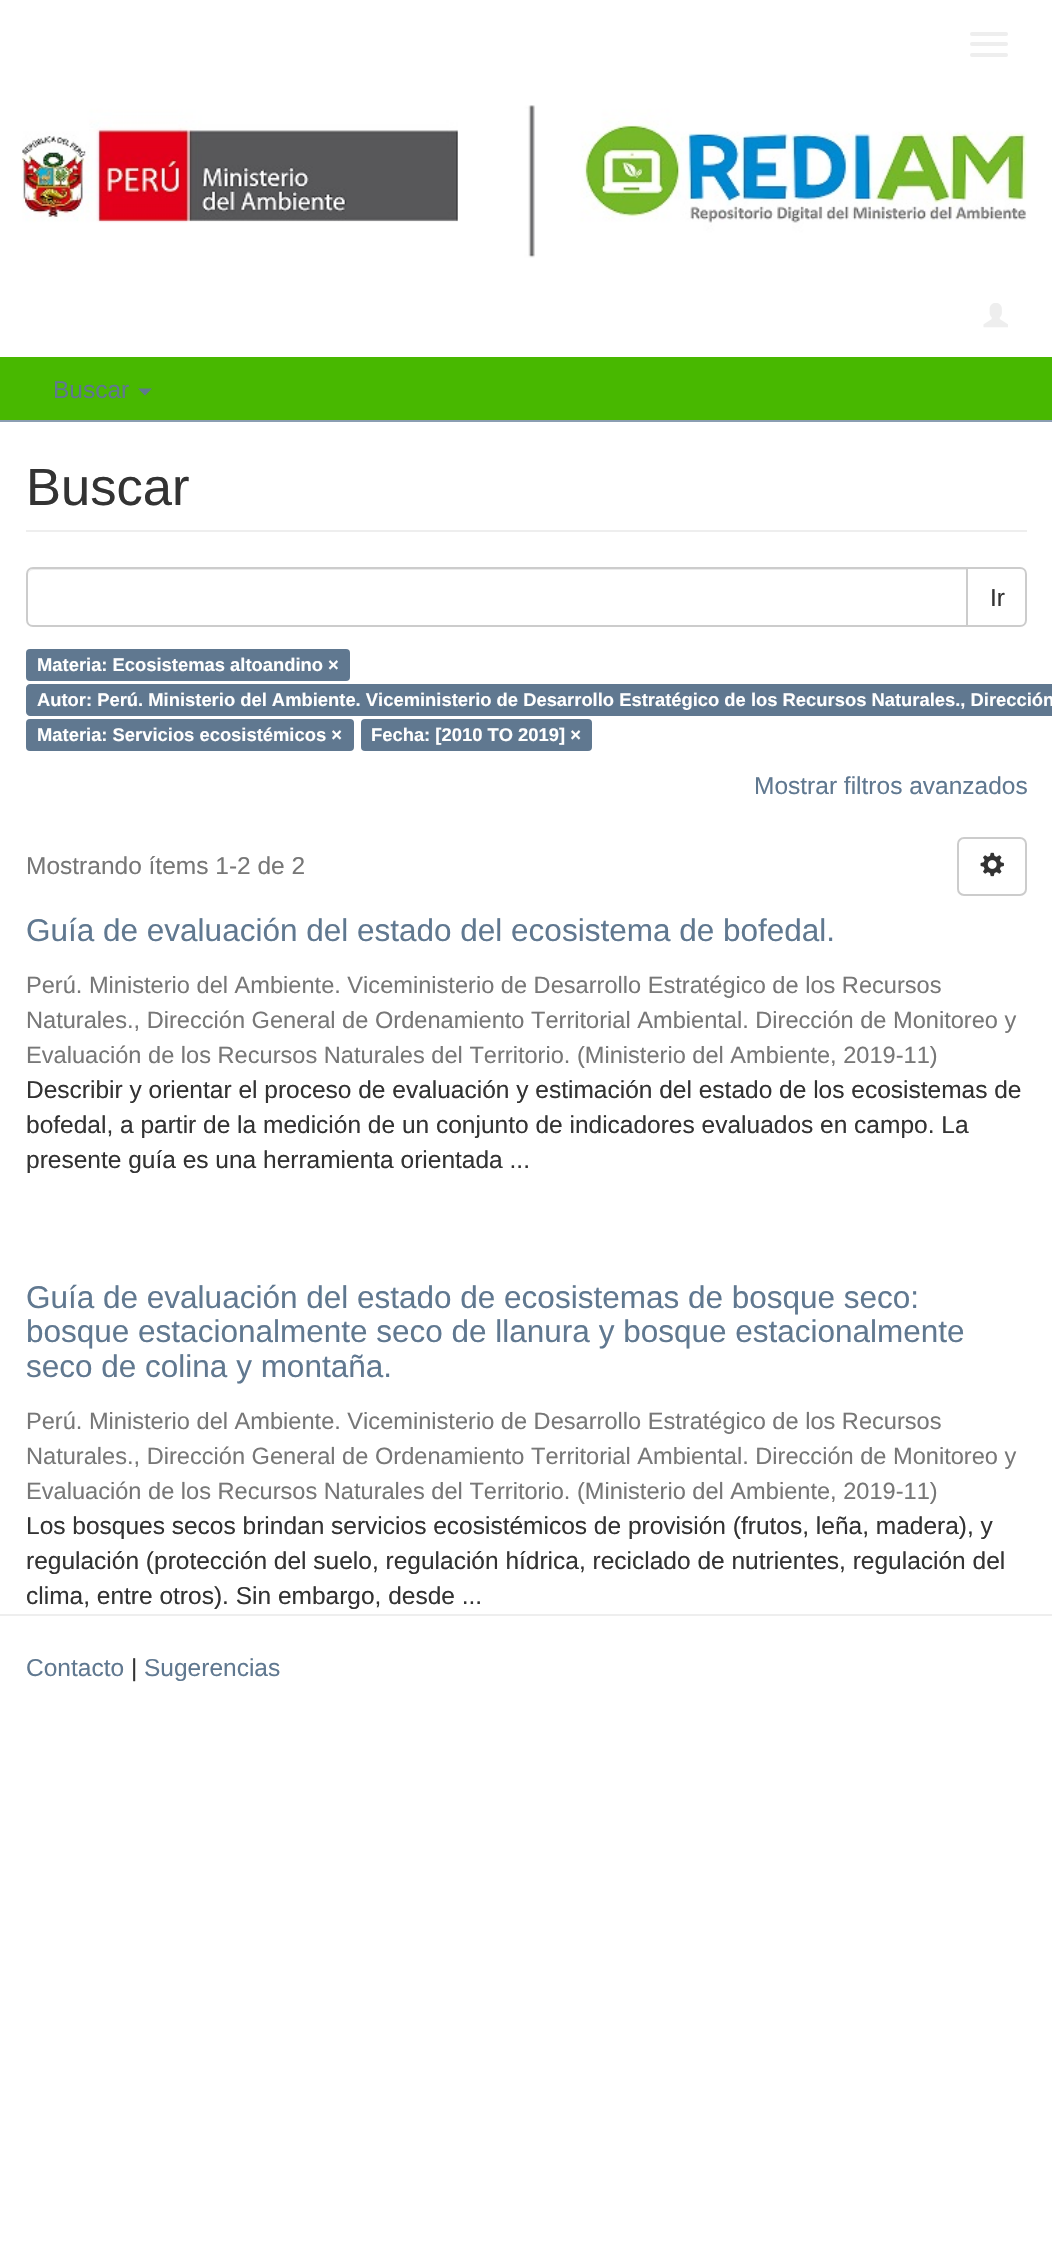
void draw(SkCanvas* canvas) {
	SkPaint fill;
	fill.setAntiAlias(true);
	auto makeFont = [&](const char* family, int weight, float size, bool italic = false) {
		SkFontStyle style(weight, SkFontStyle::kNormal_Width,
			italic ? SkFontStyle::kItalic_Slant : SkFontStyle::kUpright_Slant);
		SkFont result(fontMgr->matchFamilyStyle(family, style), size);
		result.setSubpixel(true);
		return result;
	};
	auto text = [&](const char* s, float x, float y, const SkFont& font) {
		canvas->drawString(s, x, y, font, fill);
	};
	auto box = [&](float l, float t, float r, float b) {
		canvas->drawRect(SkRect::MakeLTRB(l, t, r, b), fill);
	};
	auto roundBox = [&](float l, float t, float r, float b, float radius) {
		canvas->drawRoundRect(SkRect::MakeLTRB(l, t, r, b), radius, radius, fill);
	};
	auto picture = [&](const char* path, float l, float t, float r, float b) {
		auto image = SkImages::DeferredFromEncodedData(SkData::MakeFromFileName(path));
		canvas->drawImageRect(image, SkRect::MakeLTRB(l, t, r, b), SkSamplingOptions());
	};
	canvas->clear(0xFFFFFFFF);
	fill.setColor(0xFFEEEEEE);
	roundBox(970, 32, 1008, 36, 2);
	roundBox(970, 42, 1008, 46, 2);
	roundBox(970, 53, 1008, 57, 2);
	picture("image0.png", 21, 105, 1027, 258);
	picture("image1.png", 983, 303, 1008, 328);
	fill.setColor(0xFF48B800);
	box(0, 357, 1052, 420);
	fill.setColor(0xFF8B9EB2);
	box(0, 420, 1052, 422);
	fill.setColor(0xFF607890);
	canvas->drawPath(SkPathBuilder().moveTo(138, 388.5f).lineTo(152, 388.5f).lineTo(145, 395.5f).close().detach(), fill);
	fill.setColor(0xFFEEEEEE);
	box(26, 530, 1027, 532);
	fill.setStyle(SkPaint::kStroke_Style);
	fill.setStrokeWidth(2);
	fill.setColor(0xFFCCCCCC);
	canvas->drawPath(SkPathBuilder().moveTo(967, 568).lineTo(1020, 568).cubicTo(1023.5f, 568, 1026, 570.5f, 1026, 574).lineTo(1026, 620).cubicTo(1026, 623.5f, 1023.5f, 626, 1020, 626).lineTo(967, 626).close().detach(), fill);
	fill.setStyle(SkPaint::kFill_Style);
	fill.setColor(0xFFFFFFFF);
	canvas->drawPath(SkPathBuilder().moveTo(33, 567).lineTo(968, 567).lineTo(968, 627).lineTo(33, 627).cubicTo(29, 627, 26, 624, 26, 620).lineTo(26, 574).cubicTo(26, 570, 29, 567, 33, 567).close().detach(), fill);
	fill.setColor(0xFFECECEC);
	canvas->drawPath(SkPathBuilder().moveTo(33, 570).lineTo(966, 570).lineTo(966, 569).lineTo(33, 569).cubicTo(29, 569, 28, 573, 28, 576).cubicTo(28, 573, 30, 570, 33, 570).close().detach(), fill);
	fill.setStyle(SkPaint::kStroke_Style);
	fill.setColor(0xFFCCCCCC);
	canvas->drawPath(SkPathBuilder().moveTo(33, 568).lineTo(967, 568).lineTo(967, 626).lineTo(33, 626).cubicTo(29.5f, 626, 27, 623.5f, 27, 620).lineTo(27, 574).cubicTo(27, 570.5f, 29.5f, 568, 33, 568).close().detach(), fill);
	fill.setStyle(SkPaint::kFill_Style);
	fill.setColor(0xFF607890);
	roundBox(26, 649, 350, 681, 4);
	canvas->drawPath(SkPathBuilder().moveTo(30, 684).lineTo(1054, 684).lineTo(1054, 716).lineTo(30, 716).cubicTo(28, 716, 26, 714, 26, 712).lineTo(26, 688).cubicTo(26, 686, 28, 684, 30, 684).close().detach(), fill);
	roundBox(26, 719, 354, 751, 4);
	roundBox(361, 719, 592, 751, 4);
	fill.setStyle(SkPaint::kStroke_Style);
	fill.setColor(0xFFCCCCCC);
	canvas->drawRoundRect(SkRect::MakeLTRB(958, 838, 1026, 895), 6, 6, fill);
	picture("image2.png", 980, 852, 1004, 877);
	fill.setStyle(SkPaint::kFill_Style);
	fill.setColor(0xFFEEEEEE);
	box(0, 1614, 1052, 1616);
	auto font1 = makeFont("Liberation Sans", 400, 24.5f);
	fill.setColor(0xFF607890);
	text("Buscar", 53, 398, font1);
	auto font2 = makeFont("Liberation Sans", 400, 52.5f);
	fill.setColor(0xFF333333);
	text("Buscar", 26, 505, font2);
	text("Ir", 990, 606, font1);
	auto font3 = makeFont("Liberation Sans", 700, 18.38f);
	fill.setColor(0xFFFFFFFF);
	text("Materia: Ecosistemas altoandino ×", 37, 671, font3);
	text("Autor: Perú. Ministerio del Ambiente. Viceministerio de Desarrollo Estratégico de los Recursos Naturales., Dirección", 37, 706, font3);
	text("Materia: Servicios ecosistémicos ×", 37, 741, font3);
	text("Fecha: [2010 TO 2019] ×", 371, 741, font3);
	fill.setColor(0xFF607890);
	text("Mostrar filtros avanzados", 754, 794, font1);
	fill.setColor(0xFF777777);
	text("Mostrando ítems 1-2 de 2", 26, 874, font1);
	auto font4 = makeFont("Liberation Sans", 400, 31.5f);
	fill.setColor(0xFF607890);
	text("Guía de evaluación del estado del ecosistema de bofedal.", 26, 941, font4);
	auto font5 = makeFont("Liberation Sans", 400, 23.6f);
	fill.setColor(0xFF777777);
	text("Perú. Ministerio del Ambiente. Viceministerio de Desarrollo Estratégico de los Recursos", 26, 993, font5);
	text("Naturales., Dirección General de Ordenamiento Territorial Ambiental. Dirección de Monitoreo y", 26, 1028, font5);
	text("Evaluación de los Recursos Naturales del Territorio. (Ministerio del Ambiente, 2019-11)", 26, 1063, font5);
	fill.setColor(0xFF333333);
	text("Describir y orientar el proceso de evaluación y estimación del estado de los ecosistemas de", 26, 1098, font1);
	text("bofedal, a partir de la medición de un conjunto de indicadores evaluados en campo. La", 26, 1133, font1);
	text("presente guía es una herramienta orientada ...", 26, 1168, font1);
	fill.setColor(0xFF607890);
	text("Guía de evaluación del estado de ecosistemas de bosque seco:", 26, 1308, font4);
	text("bosque estacionalmente seco de llanura y bosque estacionalmente", 26, 1342, font4);
	text("seco de colina y montaña.", 26, 1377, font4);
	fill.setColor(0xFF777777);
	text("Perú. Ministerio del Ambiente. Viceministerio de Desarrollo Estratégico de los Recursos", 26, 1429, font5);
	text("Naturales., Dirección General de Ordenamiento Territorial Ambiental. Dirección de Monitoreo y", 26, 1464, font5);
	text("Evaluación de los Recursos Naturales del Territorio. (Ministerio del Ambiente, 2019-11)", 26, 1499, font5);
	fill.setColor(0xFF333333);
	text("Los bosques secos brindan servicios ecosistémicos de provisión (frutos, leña, madera), y", 26, 1534, font1);
	text("regulación (protección del suelo, regulación hídrica, reciclado de nutrientes, regulación del", 26, 1569, font1);
	text("clima, entre otros). Sin embargo, desde ...", 26, 1604, font1);
	fill.setColor(0xFF607890);
	text("Contacto", 26, 1676, font1);
	fill.setColor(0xFF333333);
	text("|", 131, 1676, font1);
	fill.setColor(0xFF607890);
	text("Sugerencias", 144, 1676, font1);
}
